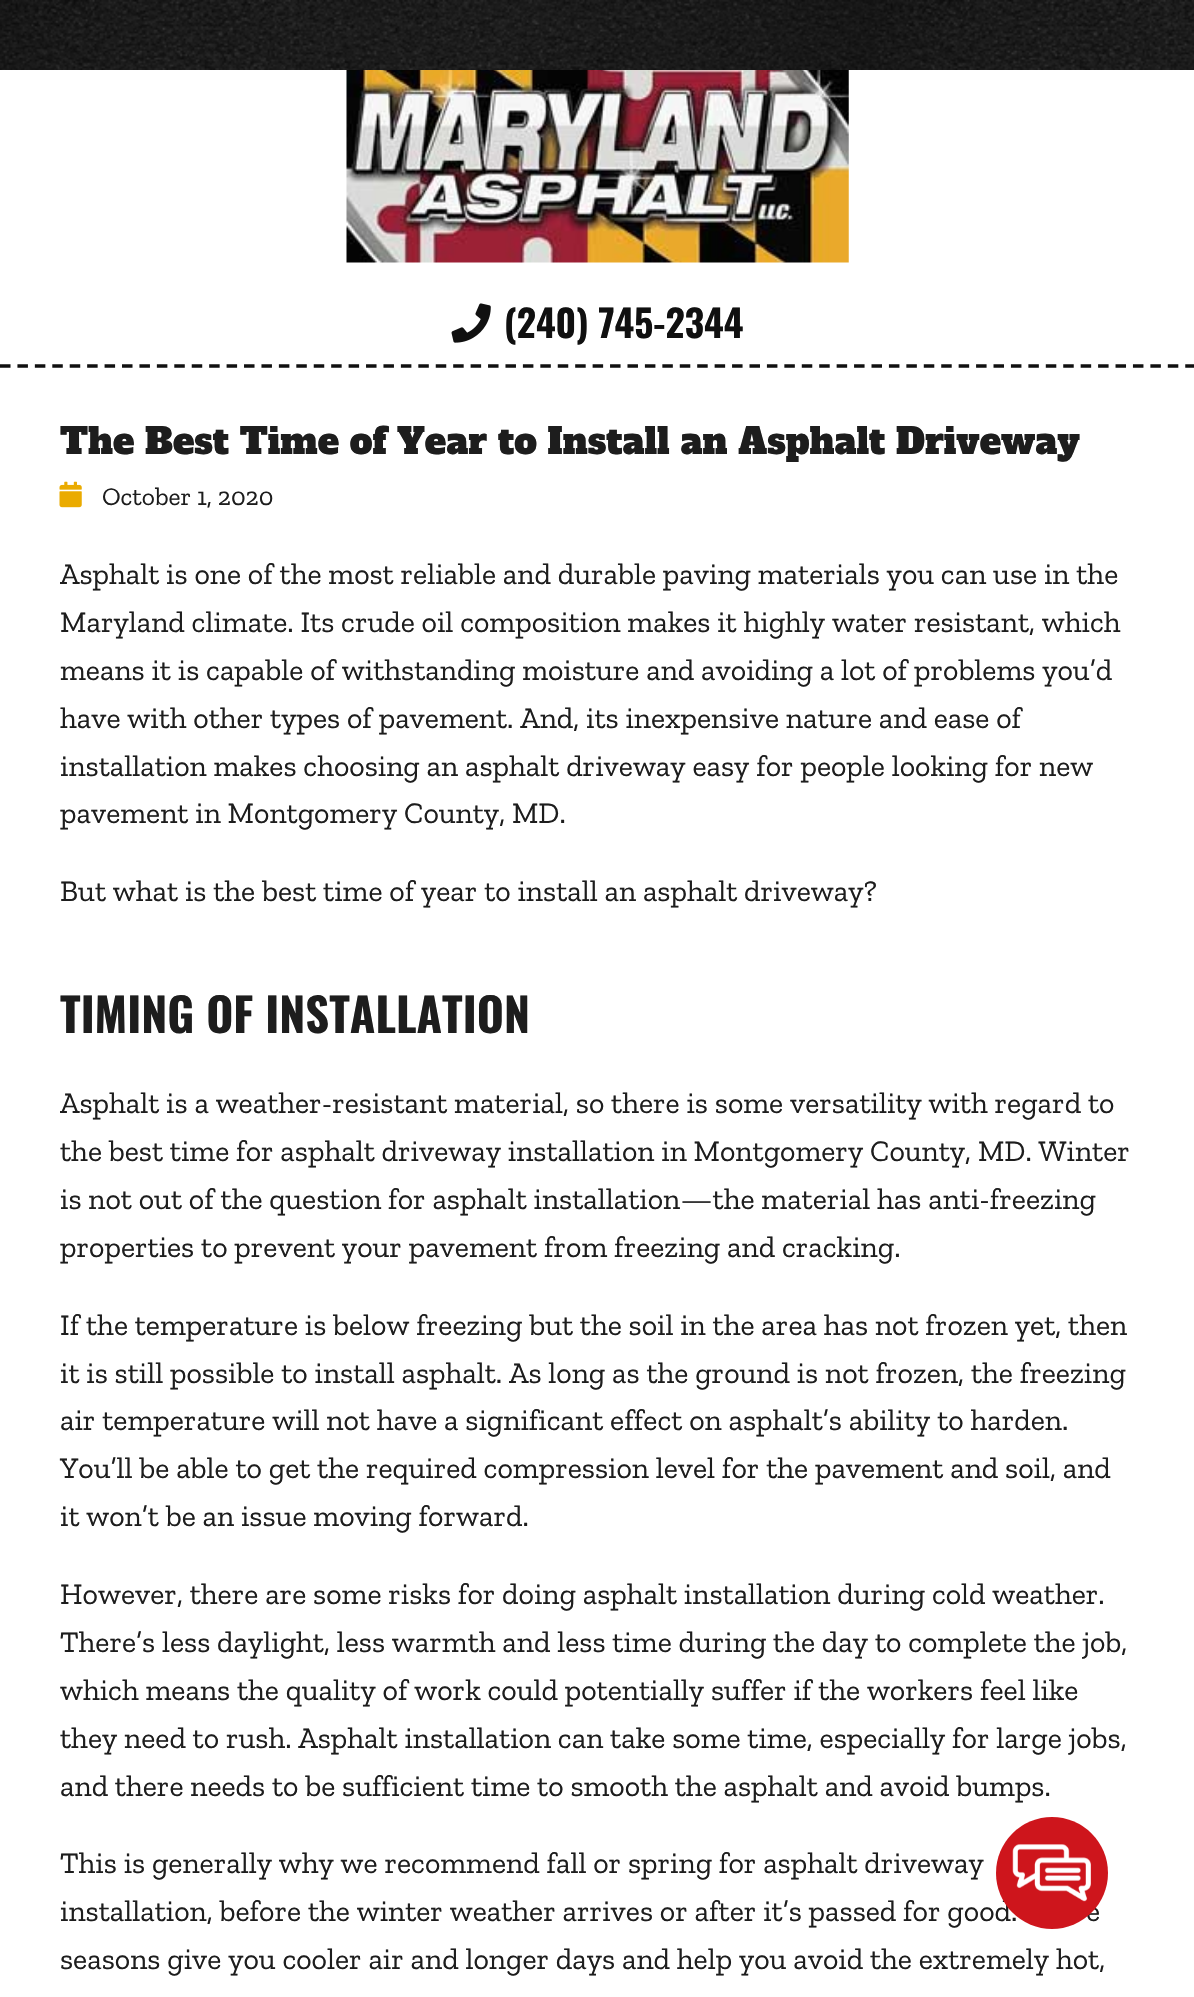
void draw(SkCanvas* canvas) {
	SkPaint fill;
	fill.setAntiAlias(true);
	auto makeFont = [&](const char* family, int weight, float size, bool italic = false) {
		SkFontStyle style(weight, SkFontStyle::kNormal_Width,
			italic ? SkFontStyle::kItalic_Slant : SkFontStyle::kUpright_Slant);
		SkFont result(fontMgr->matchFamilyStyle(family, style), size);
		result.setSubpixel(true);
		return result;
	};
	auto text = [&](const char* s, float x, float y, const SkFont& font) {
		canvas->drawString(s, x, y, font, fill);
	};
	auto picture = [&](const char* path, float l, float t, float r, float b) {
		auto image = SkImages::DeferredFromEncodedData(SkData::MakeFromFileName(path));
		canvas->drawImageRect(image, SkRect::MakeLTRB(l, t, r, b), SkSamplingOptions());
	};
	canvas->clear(0xFFFFFFFF);
	picture("image0.png", 0, 0, 1194, 70);
	picture("image1.png", 346, 70, 849, 263);
	fill.setStyle(SkPaint::kStroke_Style);
	fill.setStrokeWidth(3.5f);
	fill.setColor(0xFF101010);
	fill.setPathEffect(SkDashPathEffect::Make({{10.5f, 6.93f}}, 0));
	canvas->drawPath(SkPathBuilder().moveTo(0, 366).lineTo(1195, 366).detach(), fill);
	fill.setPathEffect(nullptr);
	picture("image2.png", 451, 303, 491, 343);
	picture("image3.png", 59, 481, 82, 508);
	auto font1 = makeFont("Oswald", 700, 37.5f);
	fill.setStyle(SkPaint::kFill_Style);
	text("(240) 745-2344", 504, 338, font1);
	auto font2 = makeFont("Alfa Slab One", 400, 35.9f);
	fill.setColor(0xFF1D1D1D);
	text("The Best Time of Year to Install an Asphalt Driveway", 60, 454, font2);
	auto font3 = makeFont("Zilla Slab", 400, 25.5f);
	text("October 1, 2020", 102, 505, font3);
	auto font4 = makeFont("Zilla Slab", 400, 29.95f);
	text("Asphalt is one of the most reliable and durable paving materials you can use in the", 60, 584, font4);
	text("Maryland climate. Its crude oil composition makes it highly water resistant, which", 60, 632, font4);
	text("means it is capable of withstanding moisture and avoiding a lot of problems you’d", 60, 680, font4);
	text("have with other types of pavement. And, its inexpensive nature and ease of", 60, 728, font4);
	text("installation makes choosing an asphalt driveway easy for people looking for new", 60, 776, font4);
	text("pavement in Montgomery County, MD.", 60, 823, font4);
	text("But what is the best time of year to install an asphalt driveway?", 60, 901, font4);
	auto font5 = makeFont("Oswald", 700, 46.4f);
	text("TIMING OF INSTALLATION", 60, 1033, font5);
	text("Asphalt is a weather-resistant material, so there is some versatility with regard to", 60, 1113, font4);
	text("the best time for asphalt driveway installation in Montgomery County, MD. Winter", 60, 1161, font4);
	text("is not out of the question for asphalt installation—the material has anti-freezing", 60, 1209, font4);
	text("properties to prevent your pavement from freezing and cracking.", 60, 1257, font4);
	text("If the temperature is below freezing but the soil in the area has not frozen yet, then", 60, 1335, font4);
	text("it is still possible to install asphalt. As long as the ground is not frozen, the freezing", 60, 1383, font4);
	text("air temperature will not have a significant effect on asphalt’s ability to harden.", 60, 1430, font4);
	text("You’ll be able to get the required compression level for the pavement and soil, and", 60, 1478, font4);
	text("it won’t be an issue moving forward.", 60, 1526, font4);
	text("However, there are some risks for doing asphalt installation during cold weather.", 60, 1604, font4);
	text("There’s less daylight, less warmth and less time during the day to complete the job,", 60, 1652, font4);
	text("which means the quality of work could potentially suffer if the workers feel like", 60, 1700, font4);
	text("they need to rush. Asphalt installation can take some time, especially for large jobs,", 60, 1748, font4);
	text("and there needs to be sufficient time to smooth the asphalt and avoid bumps.", 60, 1796, font4);
	text("This is generally why we recommend fall or spring for asphalt driveway", 60, 1873, font4);
	text("installation, before the winter weather arrives or after it’s passed for good.", 60, 1921, font4);
	text("e", 1086, 1921, font4);
	text("seasons give you cooler air and longer days and help you avoid the extremely hot,", 60, 1969, font4);
	fill.setColor(0xFFCE151C);
	canvas->drawCircle(1052, 1873, 56, fill);
	picture("image4.png", 1012, 1844, 1091, 1902);
}
